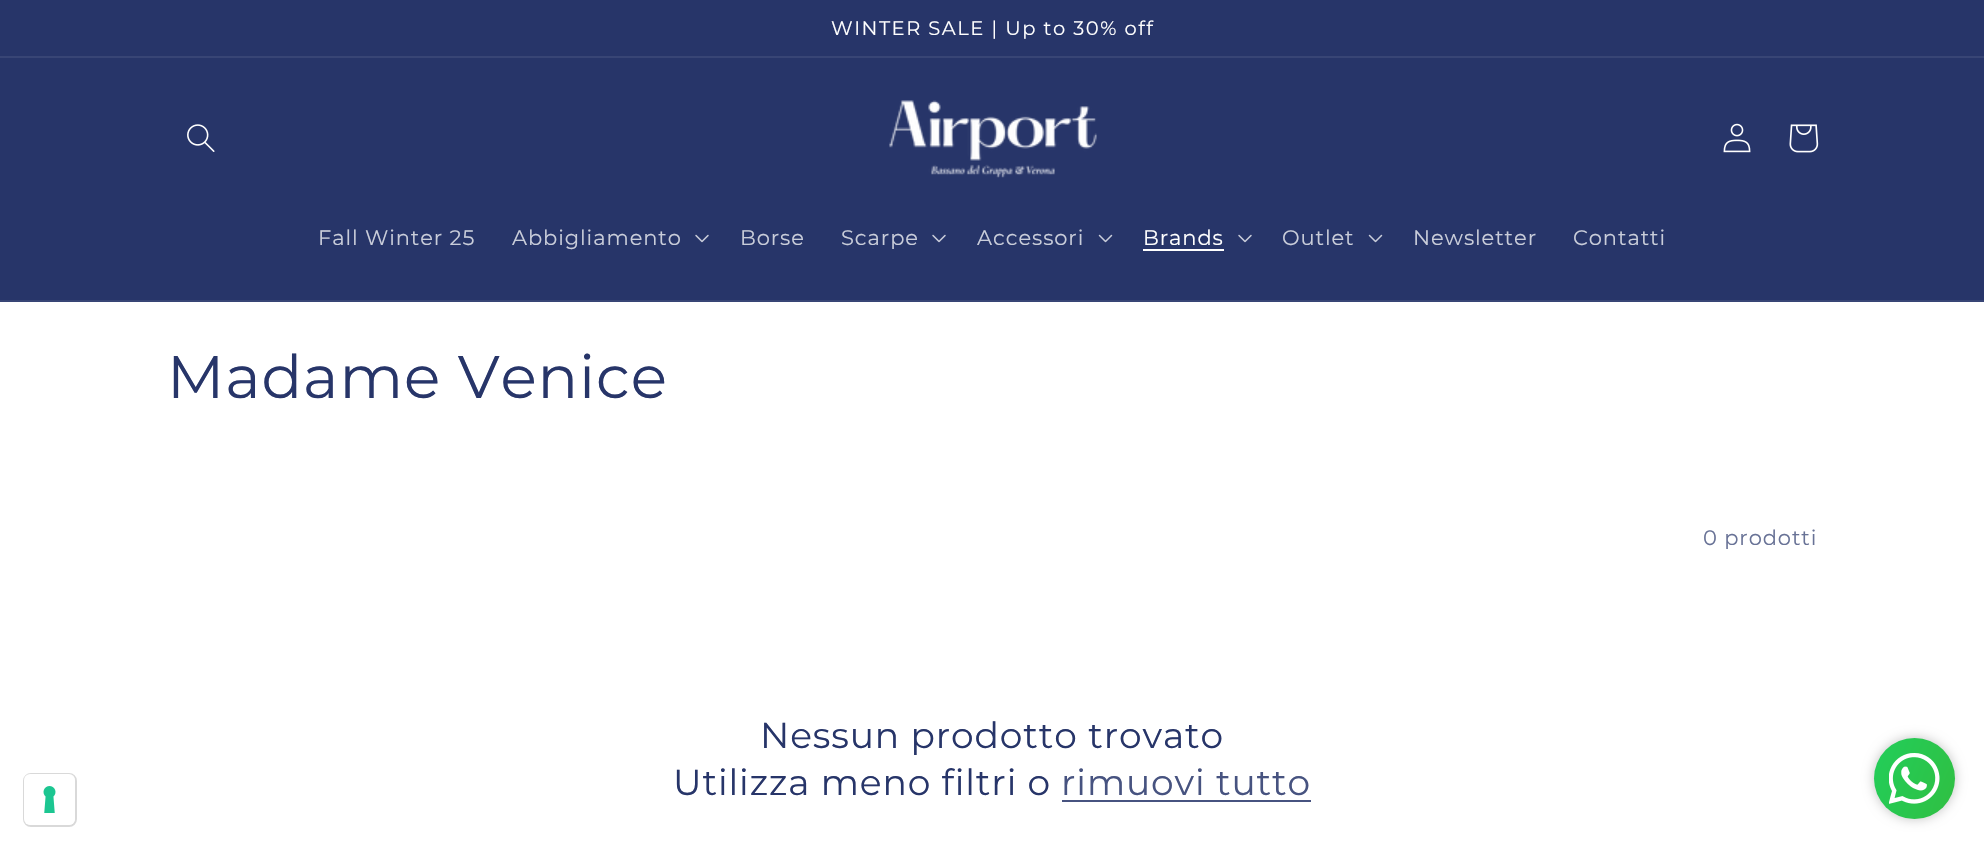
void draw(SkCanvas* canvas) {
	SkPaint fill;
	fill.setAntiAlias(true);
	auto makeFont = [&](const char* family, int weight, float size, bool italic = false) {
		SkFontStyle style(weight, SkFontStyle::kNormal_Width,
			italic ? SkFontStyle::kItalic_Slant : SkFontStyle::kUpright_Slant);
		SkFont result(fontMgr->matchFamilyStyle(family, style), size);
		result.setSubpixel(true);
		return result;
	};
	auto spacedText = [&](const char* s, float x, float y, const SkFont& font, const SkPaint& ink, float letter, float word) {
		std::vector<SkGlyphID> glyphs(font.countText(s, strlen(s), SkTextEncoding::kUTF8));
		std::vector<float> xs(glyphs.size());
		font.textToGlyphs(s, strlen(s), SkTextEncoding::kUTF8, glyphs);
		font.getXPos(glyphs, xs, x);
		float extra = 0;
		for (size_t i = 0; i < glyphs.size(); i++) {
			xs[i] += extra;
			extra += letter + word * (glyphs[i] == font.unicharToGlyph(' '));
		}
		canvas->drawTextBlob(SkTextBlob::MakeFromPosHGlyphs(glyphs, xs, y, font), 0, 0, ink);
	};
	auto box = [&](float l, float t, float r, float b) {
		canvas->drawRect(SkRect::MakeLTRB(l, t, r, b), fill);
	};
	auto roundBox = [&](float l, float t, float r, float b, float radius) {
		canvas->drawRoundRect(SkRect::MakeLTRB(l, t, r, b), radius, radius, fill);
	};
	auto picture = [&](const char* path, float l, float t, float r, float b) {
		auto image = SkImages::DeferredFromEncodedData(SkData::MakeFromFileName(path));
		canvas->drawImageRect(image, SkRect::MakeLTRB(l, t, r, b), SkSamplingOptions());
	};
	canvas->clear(0xFFFFFFFF);
	fill.setColor(0xFF273569);
	box(0, 0, 1984, 56);
	fill.setColor(0xFF384575);
	box(0, 56, 1984, 58);
	fill.setColor(0xFF273569);
	box(0, 58, 1984, 300);
	fill.setColor(0xFF384575);
	box(0, 300, 1984, 302);
	picture("image0.png", 187, 124, 215, 152);
	picture("image1.png", 889, 100, 1097, 178);
	picture("image2.png", 1723, 123, 1751, 153);
	picture("image3.png", 1789, 124, 1819, 153);
	picture("image4.png", 695, 234, 709, 243);
	picture("image4.png", 932, 234, 946, 243);
	picture("image5.png", 1098, 234, 1113, 243);
	fill.setColor(0xFFFFFFFF);
	box(1143, 249, 1224, 251);
	picture("image4.png", 1238, 234, 1252, 243);
	picture("image5.png", 1368, 234, 1383, 243);
	fill.setStyle(SkPaint::kStroke_Style);
	fill.setStrokeWidth(2);
	fill.setColor(0xFFD9D9D9);
	canvas->drawRoundRect(SkRect::MakeLTRB(24, 774, 76, 826), 7, 7, fill);
	fill.setStyle(SkPaint::kFill_Style);
	fill.setColor(0xFFFFFFFF);
	roundBox(24, 774, 75, 825, 6);
	picture("image6.png", 43, 786, 56, 813);
	fill.setColor(0xFF475380);
	box(1062, 800, 1311, 802);
	fill.setColor(0xFFC2C2C2);
	fill.setMaskFilter(SkMaskFilter::MakeBlur(kNormal_SkBlurStyle, 6));
	canvas->drawRoundRect(SkRect::MakeLTRB(1874, 738, 1955, 819), 40.5f, 40.5f, fill);
	fill.setMaskFilter(nullptr);
	{
		const SkColor colors[] = {0xFF22CE5A, 0xFF22CE5A, 0xFF30BF42};
		const float stops[] = {0, 0, 1};
		const SkPoint ends[] = {{1865, 758}, {1963, 799}};
		fill.setShader(SkGradientShader::MakeLinear(ends, colors, stops, 3, SkTileMode::kClamp));
		fill.setAlpha(255);
	}
	canvas->drawCircle(1914.5f, 778.5f, 40.5f, fill);
	picture("image7.png", 1889, 753, 1940, 804);
	auto font1 = makeFont("Montserrat", 400, 19.5f);
	fill.setShader(nullptr);
	fill.setColor(0xFFFFFFFF);
	spacedText("WINTER SALE | Up to 30% off", 831, 35, font1, fill, 1.5f, 0);
	auto font2 = makeFont("Montserrat", 400, 21);
	fill.setColor(0xFFC9CDDA);
	spacedText("Fall Winter 25", 318, 245, font2, fill, 0.9f, 0);
	spacedText("Abbigliamento", 512, 245, font2, fill, 0.9f, 0);
	spacedText("Borse", 740, 245, font2, fill, 0.9f, 0);
	spacedText("Scarpe", 841, 245, font2, fill, 0.9f, 0);
	spacedText("Accessori", 977, 245, font2, fill, 0.9f, 0);
	fill.setColor(0xFFFFFFFF);
	spacedText("Brands", 1143, 245, font2, fill, 0.9f, 0);
	fill.setColor(0xFFC9CDDA);
	spacedText("Outlet", 1282, 245, font2, fill, 0.9f, 0);
	spacedText("Newsletter", 1413, 245, font2, fill, 0.9f, 0);
	spacedText("Contatti", 1573, 245, font2, fill, 0.9f, 0);
	auto font3 = makeFont("Montserrat", 400, 60);
	fill.setColor(0xFF273569);
	spacedText("Madame Venice", 167, 398, font3, fill, 0.9f, 0);
	fill.setColor(0xFF687296);
	spacedText("0 prodotti", 1703, 545, font2, fill, 0.9f, 0);
	auto font4 = makeFont("Montserrat", 400, 36);
	fill.setColor(0xFF273569);
	spacedText("Nessun prodotto trovato", 760, 748, font4, fill, 0.9f, 0);
	spacedText("Utilizza meno filtri o", 673, 795, font4, fill, 0.9f, 0);
	fill.setColor(0xFF475380);
	spacedText("rimuovi tutto", 1061, 795, font4, fill, 0.9f, 0);
}
